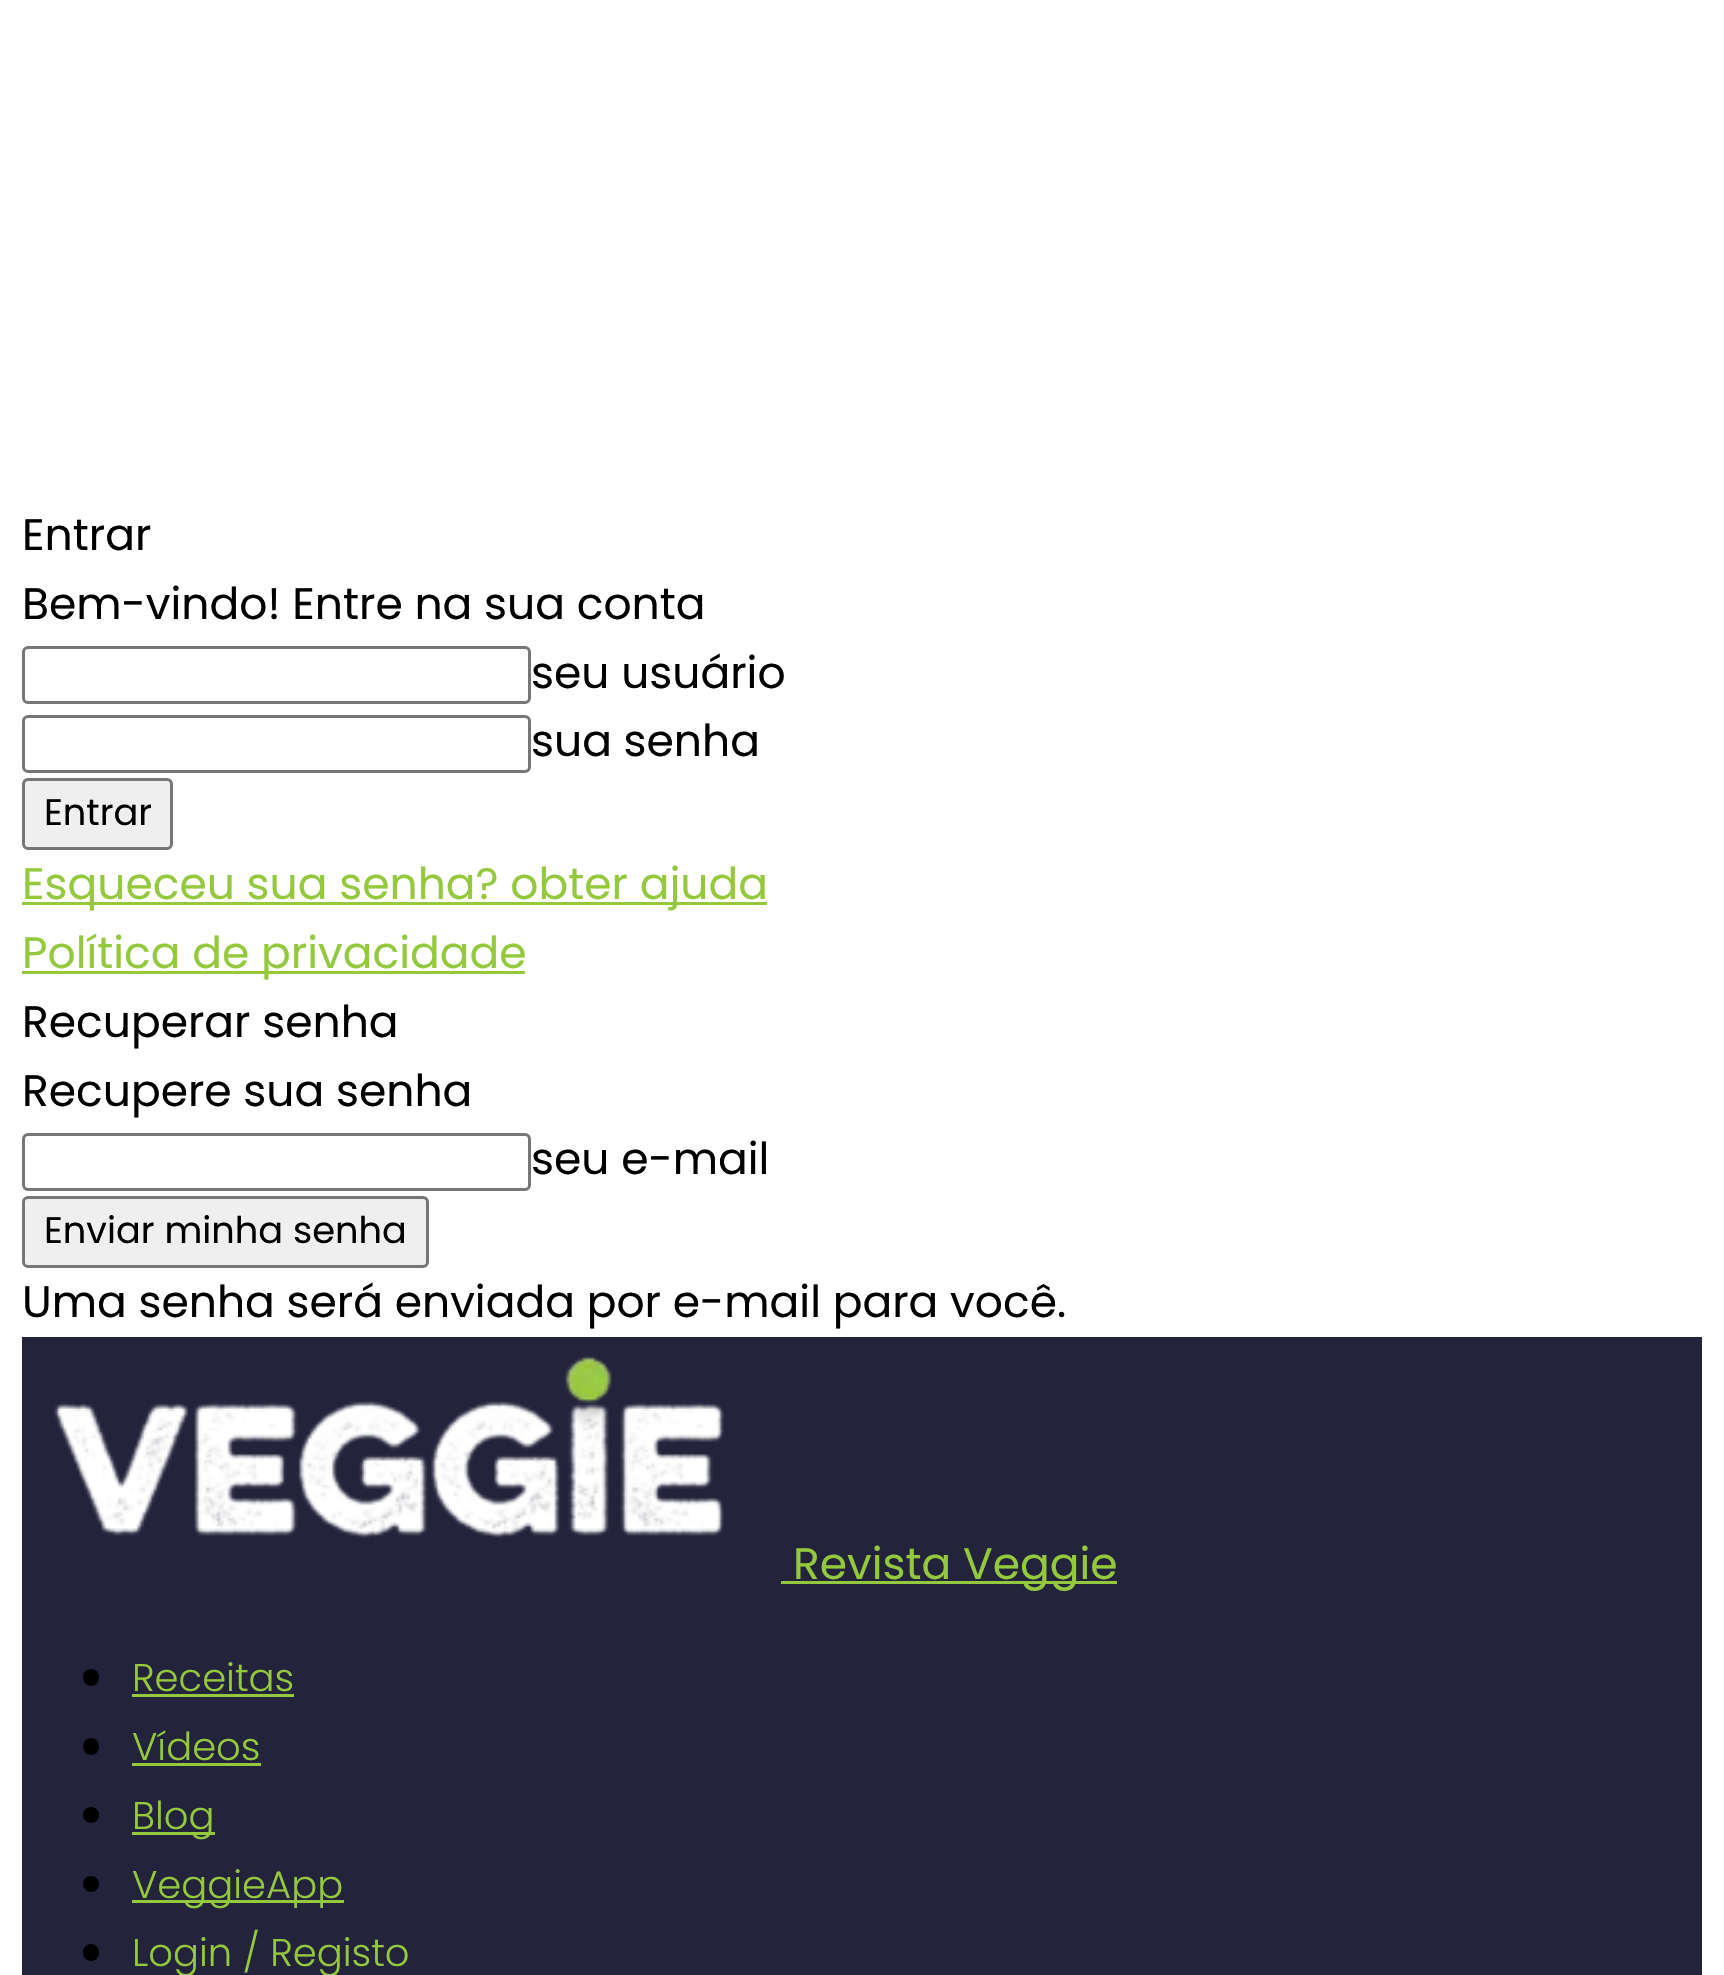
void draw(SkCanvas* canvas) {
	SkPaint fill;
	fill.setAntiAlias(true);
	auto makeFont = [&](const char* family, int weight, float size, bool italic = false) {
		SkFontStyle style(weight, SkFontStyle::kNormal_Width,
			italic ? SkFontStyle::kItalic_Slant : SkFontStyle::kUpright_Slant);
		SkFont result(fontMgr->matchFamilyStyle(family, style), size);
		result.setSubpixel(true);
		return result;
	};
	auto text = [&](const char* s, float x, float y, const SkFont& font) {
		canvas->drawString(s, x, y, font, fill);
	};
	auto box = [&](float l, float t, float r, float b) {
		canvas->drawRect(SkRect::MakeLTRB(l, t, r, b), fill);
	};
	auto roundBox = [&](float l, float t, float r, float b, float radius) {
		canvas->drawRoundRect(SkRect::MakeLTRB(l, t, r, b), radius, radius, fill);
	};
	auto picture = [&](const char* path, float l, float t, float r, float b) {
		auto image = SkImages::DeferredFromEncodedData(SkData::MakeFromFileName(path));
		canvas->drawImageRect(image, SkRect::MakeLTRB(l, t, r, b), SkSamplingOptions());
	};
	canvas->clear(0xFFFFFFFF);
	fill.setStyle(SkPaint::kStroke_Style);
	fill.setStrokeWidth(3);
	fill.setColor(0xFF767676);
	canvas->drawRoundRect(SkRect::MakeLTRB(23.5f, 647.5f, 529.5f, 702.5f), 4.5f, 4.5f, fill);
	canvas->drawRoundRect(SkRect::MakeLTRB(23.5f, 716.5f, 529.5f, 771.5f), 4.5f, 4.5f, fill);
	fill.setStyle(SkPaint::kFill_Style);
	fill.setColor(0xFFEFEFEF);
	canvas->drawRoundRect(SkRect::MakeLTRB(23.5f, 779.5f, 171.5f, 848.5f), 4.5f, 4.5f, fill);
	fill.setStyle(SkPaint::kStroke_Style);
	fill.setColor(0xFF767676);
	canvas->drawRoundRect(SkRect::MakeLTRB(23.5f, 779.5f, 171.5f, 848.5f), 4.5f, 4.5f, fill);
	fill.setStyle(SkPaint::kFill_Style);
	fill.setColor(0xFF95C93D);
	box(22, 902, 767, 905);
	box(22, 971, 525, 974);
	fill.setStyle(SkPaint::kStroke_Style);
	fill.setColor(0xFF767676);
	canvas->drawRoundRect(SkRect::MakeLTRB(23.5f, 1134.5f, 529.5f, 1189.5f), 4.5f, 4.5f, fill);
	fill.setStyle(SkPaint::kFill_Style);
	fill.setColor(0xFFEFEFEF);
	canvas->drawRoundRect(SkRect::MakeLTRB(23.5f, 1197.5f, 427.5f, 1266.5f), 4.5f, 4.5f, fill);
	fill.setStyle(SkPaint::kStroke_Style);
	fill.setColor(0xFF767676);
	canvas->drawRoundRect(SkRect::MakeLTRB(23.5f, 1197.5f, 427.5f, 1266.5f), 4.5f, 4.5f, fill);
	fill.setStyle(SkPaint::kFill_Style);
	fill.setColor(0xFF23233C);
	box(22, 1337, 1702, 1975);
	picture("image0.png", 54, 1355, 724, 1538);
	fill.setColor(0xFF95C93D);
	box(781, 1581, 1117, 1584);
	fill.setColor(0xFF000000);
	roundBox(83, 1669, 99, 1686, 8);
	fill.setColor(0xFF95C93D);
	box(132, 1694, 294, 1697);
	fill.setColor(0xFF000000);
	roundBox(83, 1738, 99, 1755, 8);
	fill.setColor(0xFF95C93D);
	box(132, 1763, 261, 1766);
	fill.setColor(0xFF000000);
	canvas->drawCircle(91, 1815, 8, fill);
	fill.setColor(0xFF95C93D);
	box(132, 1832, 215, 1835);
	fill.setColor(0xFF000000);
	canvas->drawCircle(91, 1884, 8, fill);
	fill.setColor(0xFF95C93D);
	box(132, 1900, 344, 1903);
	fill.setColor(0xFF000000);
	roundBox(83, 1944, 99, 1961, 8);
	auto font1 = makeFont("Poppins", 400, 44);
	text("Entrar", 22, 550, font1);
	text("Bem-vindo! Entre na sua conta", 22, 619, font1);
	text("seu usuário", 531, 688, font1);
	text("sua senha", 531, 756, font1);
	auto font2 = makeFont("Poppins", 400, 36.75f);
	text("Entrar", 44, 825, font2);
	fill.setColor(0xFF95C93D);
	text("Esqueceu sua senha? obter ajuda", 22, 899, font1);
	text("Política de privacidade", 22, 968, font1);
	fill.setColor(0xFF000000);
	text("Recuperar senha", 22, 1037, font1);
	text("Recupere sua senha", 22, 1106, font1);
	text("seu e-mail", 531, 1174, font1);
	text("Enviar minha senha", 44, 1243, font2);
	text("Uma senha será enviada por e-mail para você.", 22, 1317, font1);
	fill.setColor(0xFF95C93D);
	text("Revista Veggie", 793, 1579, font1);
	auto font3 = makeFont("Poppins", 300, 38.5f);
	text("Receitas", 132, 1691, font3);
	text("Vídeos", 132, 1760, font3);
	text("Blog", 132, 1829, font3);
	text("VeggieApp", 132, 1898, font3);
	text("Login / Registo", 132, 1966, font3);
}
